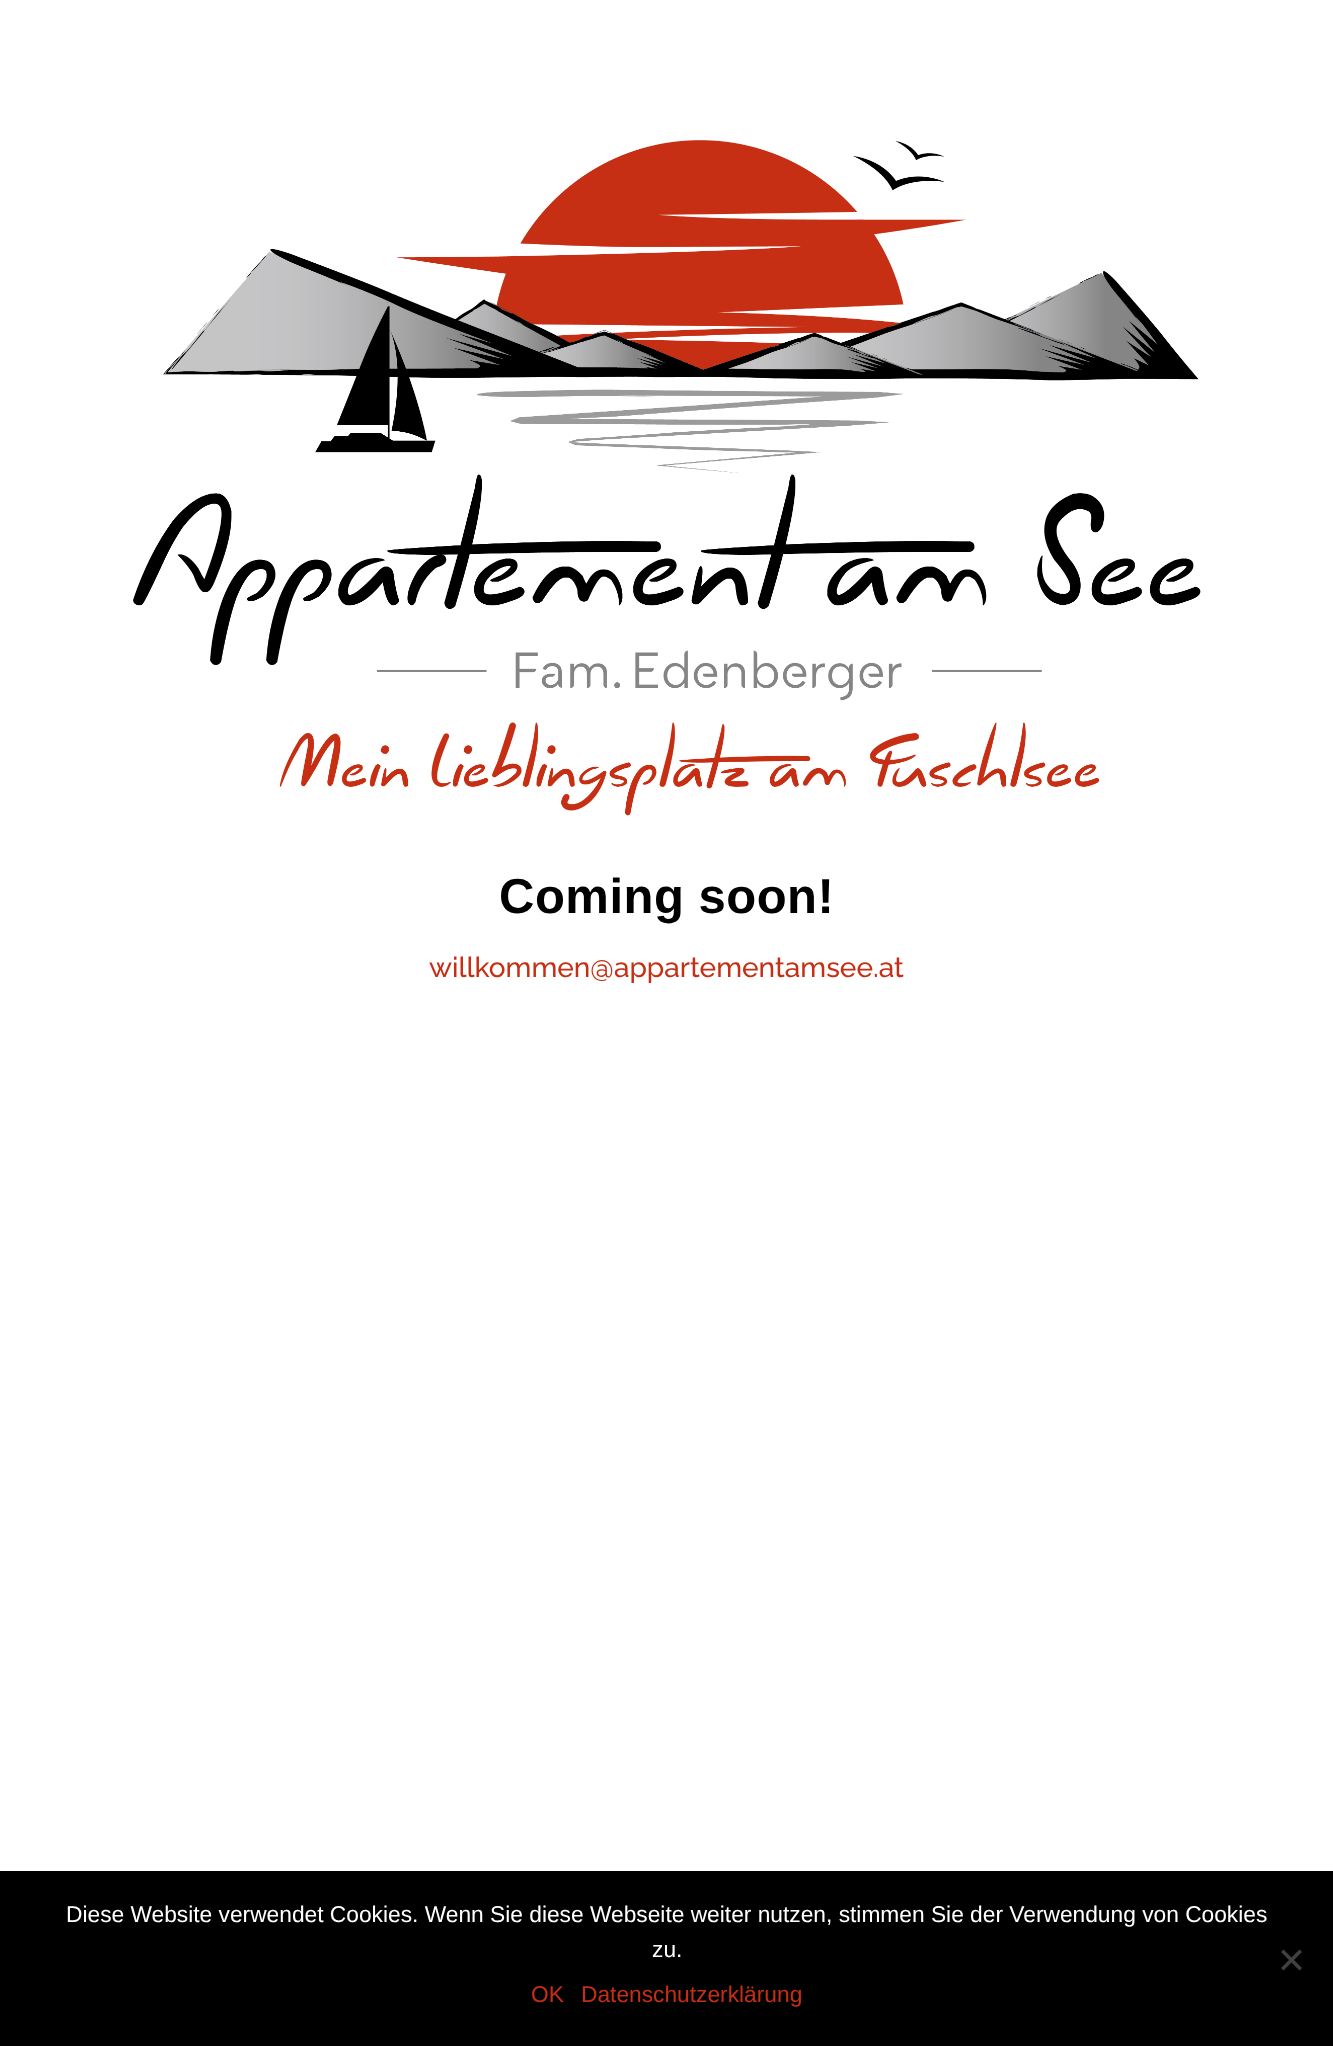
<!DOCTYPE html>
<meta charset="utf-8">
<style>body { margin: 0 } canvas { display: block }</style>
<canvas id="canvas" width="1333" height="2046"></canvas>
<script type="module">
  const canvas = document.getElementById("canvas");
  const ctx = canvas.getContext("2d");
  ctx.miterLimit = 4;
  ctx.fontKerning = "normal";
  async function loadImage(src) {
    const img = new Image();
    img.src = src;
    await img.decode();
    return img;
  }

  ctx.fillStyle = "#ffffff";
  ctx.fillRect(0, 0, 1333, 2046);
  ctx.drawImage(await loadImage("img1.png"), 133, 140, 1068, 676);
  ctx.letterSpacing = "0.5px";
  ctx.font = "bold 49px Liberation Sans";
  ctx.fillStyle = "#000000";
  ctx.fillText("Coming soon!", 499, 913);
  ctx.letterSpacing = "0px";
  ctx.font = "500 28px Raleway";
  ctx.fillStyle = "#c62f14";
  ctx.fillText("willkommen@appartementamsee.at", 429, 977);
  ctx.fillStyle = "#000000";
  ctx.fillRect(0, 1871, 1333, 175);
  ctx.font = "22.75px Liberation Sans";
  ctx.fillStyle = "#ffffff";
  ctx.fillText("Diese Website verwendet Cookies. Wenn Sie diese Webseite weiter nutzen, stimmen Sie der Verwendung von Cookies", 66, 1922);
  ctx.fillText("zu.", 652, 1957);
  ctx.fillStyle = "#404040";
  ctx.beginPath();
  ctx.moveTo(1299.5, 1949.5);
  ctx.lineTo(1302, 1952);
  ctx.lineTo(1283.5, 1970.5);
  ctx.lineTo(1281, 1968);
  ctx.closePath();
  ctx.fill();
  ctx.beginPath();
  ctx.moveTo(1281, 1952);
  ctx.lineTo(1283.5, 1949.5);
  ctx.lineTo(1302, 1968);
  ctx.lineTo(1299.5, 1970.5);
  ctx.closePath();
  ctx.fill();
  ctx.fillStyle = "#c62f14";
  ctx.fillText("OK", 531, 2002);
  ctx.fillText("Datenschutzerklärung", 581, 2002);
</script>
